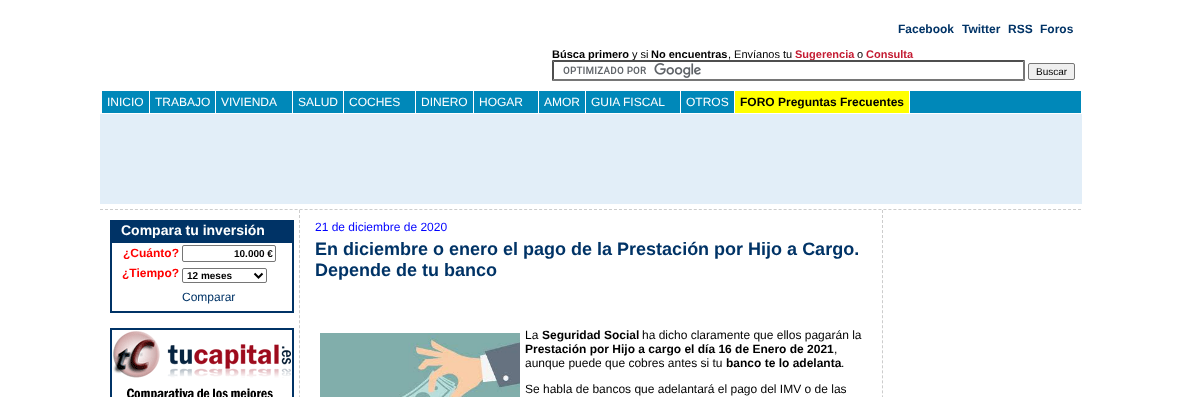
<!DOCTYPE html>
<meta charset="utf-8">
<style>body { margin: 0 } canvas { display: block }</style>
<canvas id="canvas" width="1182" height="397"></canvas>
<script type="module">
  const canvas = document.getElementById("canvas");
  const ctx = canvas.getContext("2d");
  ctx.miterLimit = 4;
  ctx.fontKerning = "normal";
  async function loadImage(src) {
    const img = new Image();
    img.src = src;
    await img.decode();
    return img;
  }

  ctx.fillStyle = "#ffffff";
  ctx.fillRect(0, 0, 1182, 397);
  ctx.font = "bold 12px Liberation Sans";
  ctx.fillStyle = "#003366";
  ctx.fillText("Facebook", 898, 33);
  ctx.fillText("Twitter", 962, 33);
  ctx.fillText("RSS", 1008, 33);
  ctx.fillText("Foros", 1040, 33);
  ctx.font = "bold 11px Liberation Sans";
  ctx.fillStyle = "#000000";
  ctx.fillText("Búsca primero", 552, 58);
  ctx.font = "11px Liberation Sans";
  ctx.fillText("y si", 632, 58);
  ctx.font = "bold 11px Liberation Sans";
  ctx.fillText("No encuentras", 651, 58);
  ctx.font = "11px Liberation Sans";
  ctx.fillText(", Envíanos tu", 728, 58);
  ctx.font = "bold 11px Liberation Sans";
  ctx.fillStyle = "#c41b32";
  ctx.fillText("Sugerencia", 795, 58);
  ctx.font = "11px Liberation Sans";
  ctx.fillStyle = "#000000";
  ctx.fillText("o", 857, 58);
  ctx.font = "bold 11px Liberation Sans";
  ctx.fillStyle = "#c41b32";
  ctx.fillText("Consulta", 866, 58);
  ctx.fillStyle = "#ffffff";
  ctx.fillRect(588, 60, 226, 1);
  ctx.drawImage(await loadImage("img1.png"), 563, 63, 138, 15);
  ctx.fillStyle = "#4f4f4f";
  ctx.beginPath();
  ctx.moveTo(552, 60);
  ctx.lineTo(1025, 60);
  ctx.lineTo(1023, 62);
  ctx.lineTo(554, 62);
  ctx.closePath();
  ctx.fill();
  ctx.fillStyle = "#767676";
  ctx.beginPath();
  ctx.moveTo(1025, 60);
  ctx.lineTo(1025, 81);
  ctx.lineTo(1023, 79);
  ctx.lineTo(1023, 62);
  ctx.closePath();
  ctx.fill();
  ctx.beginPath();
  ctx.moveTo(1025, 81);
  ctx.lineTo(552, 81);
  ctx.lineTo(554, 79);
  ctx.lineTo(1023, 79);
  ctx.closePath();
  ctx.fill();
  ctx.fillStyle = "#4f4f4f";
  ctx.beginPath();
  ctx.moveTo(552, 81);
  ctx.lineTo(552, 60);
  ctx.lineTo(554, 62);
  ctx.lineTo(554, 79);
  ctx.closePath();
  ctx.fill();
  ctx.fillStyle = "#efefef";
  ctx.beginPath();
  ctx.roundRect(1028.5, 63.5, 46, 16, 1.5);
  ctx.fill();
  ctx.strokeStyle = "#767676";
  ctx.stroke();
  ctx.font = "10px Liberation Sans";
  ctx.fillStyle = "#000000";
  ctx.fillText("Buscar", 1036, 75);
  ctx.fillStyle = "#0088b9";
  ctx.fillRect(910, 91, 171, 22);
  ctx.fillRect(102, 91, 47, 22);
  ctx.font = "12px Liberation Sans";
  ctx.fillStyle = "#ffffff";
  ctx.fillText("INICIO", 107, 106);
  ctx.fillStyle = "#0088b9";
  ctx.fillRect(150, 91, 65, 22);
  ctx.fillStyle = "#ffffff";
  ctx.fillText("TRABAJO", 155, 106);
  ctx.fillStyle = "#0088b9";
  ctx.fillRect(216, 91, 76, 22);
  ctx.fillStyle = "#ffffff";
  ctx.fillText("VIVIENDA", 221, 106);
  ctx.fillStyle = "#0088b9";
  ctx.fillRect(293, 91, 50, 22);
  ctx.fillStyle = "#ffffff";
  ctx.fillText("SALUD", 298, 106);
  ctx.fillStyle = "#0088b9";
  ctx.fillRect(344, 91, 71, 22);
  ctx.fillStyle = "#ffffff";
  ctx.fillText("COCHES", 349, 106);
  ctx.fillStyle = "#0088b9";
  ctx.fillRect(416, 91, 57, 22);
  ctx.fillStyle = "#ffffff";
  ctx.fillText("DINERO", 421, 106);
  ctx.fillStyle = "#0088b9";
  ctx.fillRect(474, 91, 64, 22);
  ctx.fillStyle = "#ffffff";
  ctx.fillText("HOGAR", 479, 106);
  ctx.fillStyle = "#0088b9";
  ctx.fillRect(539, 91, 46, 22);
  ctx.fillStyle = "#ffffff";
  ctx.fillText("AMOR", 544, 106);
  ctx.fillStyle = "#0088b9";
  ctx.fillRect(586, 91, 94, 22);
  ctx.fillStyle = "#ffffff";
  ctx.fillText("GUIA FISCAL", 591, 106);
  ctx.fillStyle = "#0088b9";
  ctx.fillRect(681, 91, 53, 22);
  ctx.fillStyle = "#ffffff";
  ctx.fillText("OTROS", 686, 106);
  ctx.fillStyle = "#ffff00";
  ctx.fillRect(735, 91, 174, 22);
  ctx.font = "bold 12px Liberation Sans";
  ctx.fillStyle = "#000000";
  ctx.fillText("FORO Preguntas Frecuentes", 740, 106);
  ctx.fillStyle = "#e2eef8";
  ctx.fillRect(100, 114, 982, 90);
  ctx.beginPath();
  ctx.moveTo(100, 209.5);
  ctx.lineTo(1082, 209.5);
  ctx.strokeStyle = "#cccccc";
  ctx.setLineDash([3, 1.99]);
  ctx.stroke();
  ctx.beginPath();
  ctx.moveTo(299.5, 210);
  ctx.lineTo(299.5, 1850);
  ctx.setLineDash([3, 2.01]);
  ctx.stroke();
  ctx.fillStyle = "#003366";
  ctx.fillRect(110, 220, 184, 93);
  ctx.font = "bold 14px Liberation Sans";
  ctx.fillStyle = "#ffffff";
  ctx.fillText("Compara tu inversión", 121, 235);
  ctx.fillRect(112, 243, 180, 68);
  ctx.font = "bold 12px Liberation Sans";
  ctx.fillStyle = "#ff0000";
  ctx.fillText("¿Cuánto?", 123, 257);
  ctx.beginPath();
  ctx.roundRect(182.5, 245.5, 93, 16, 1.5);
  ctx.strokeStyle = "#767676";
  ctx.setLineDash([]);
  ctx.stroke();
  ctx.font = "bold 10px Liberation Sans";
  ctx.fillStyle = "#000000";
  ctx.fillText("10.000 €", 234, 257);
  ctx.font = "bold 12px Liberation Sans";
  ctx.fillStyle = "#ff0000";
  ctx.fillText("¿Tiempo?", 122, 277);
  ctx.beginPath();
  ctx.roundRect(182.5, 268.5, 84, 14, 1.5);
  ctx.stroke();
  ctx.beginPath();
  ctx.moveTo(254.5, 273.5);
  ctx.lineTo(258.5, 277.5);
  ctx.lineTo(262.5, 273.5);
  ctx.strokeStyle = "#000000";
  ctx.lineWidth = 2;
  ctx.stroke();
  ctx.font = "bold 10px Liberation Sans";
  ctx.fillStyle = "#000000";
  ctx.fillText("12 meses", 187, 279);
  ctx.font = "12px Liberation Sans";
  ctx.fillStyle = "#003366";
  ctx.fillText("Comparar", 182, 301);
  ctx.strokeStyle = "#003366";
  ctx.strokeRect(111, 329, 182, 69);
  ctx.drawImage(await loadImage("img2.png"), 113, 331, 178, 66);
  ctx.fillStyle = "#0000ff";
  ctx.fillText("21 de diciembre de 2020", 315, 231);
  ctx.font = "bold 18px Liberation Sans";
  ctx.fillStyle = "#003366";
  ctx.fillText("En diciembre o enero el pago de la Prestación por Hijo a Cargo.", 315, 255);
  ctx.fillText("Depende de tu banco", 315, 276);
  ctx.drawImage(await loadImage("img3.png"), 320, 333, 200, 64);
  ctx.font = "12px Liberation Sans";
  ctx.fillStyle = "#000000";
  ctx.fillText("La", 525, 339);
  ctx.font = "bold 12px Liberation Sans";
  ctx.fillText("Seguridad Social", 542, 339);
  ctx.font = "12px Liberation Sans";
  ctx.fillText("ha dicho claramente que ellos pagarán la", 642, 339);
  ctx.font = "bold 12px Liberation Sans";
  ctx.fillText("Prestación por Hijo a cargo el día 16 de Enero de 2021", 525, 353);
  ctx.font = "12px Liberation Sans";
  ctx.fillText(",", 834, 353);
  ctx.fillText("aunque puede que cobres antes si tu", 525, 367);
  ctx.font = "bold 12px Liberation Sans";
  ctx.fillText("banco te lo adelanta", 726, 367);
  ctx.font = "12px Liberation Sans";
  ctx.fillText(".", 841, 367);
  ctx.fillText("Se habla de bancos que adelantará el pago del IMV o de las", 525, 393);
  ctx.beginPath();
  ctx.moveTo(882.5, 210);
  ctx.lineTo(882.5, 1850);
  ctx.strokeStyle = "#cccccc";
  ctx.lineWidth = 1;
  ctx.setLineDash([3, 2.01]);
  ctx.stroke();
</script>
